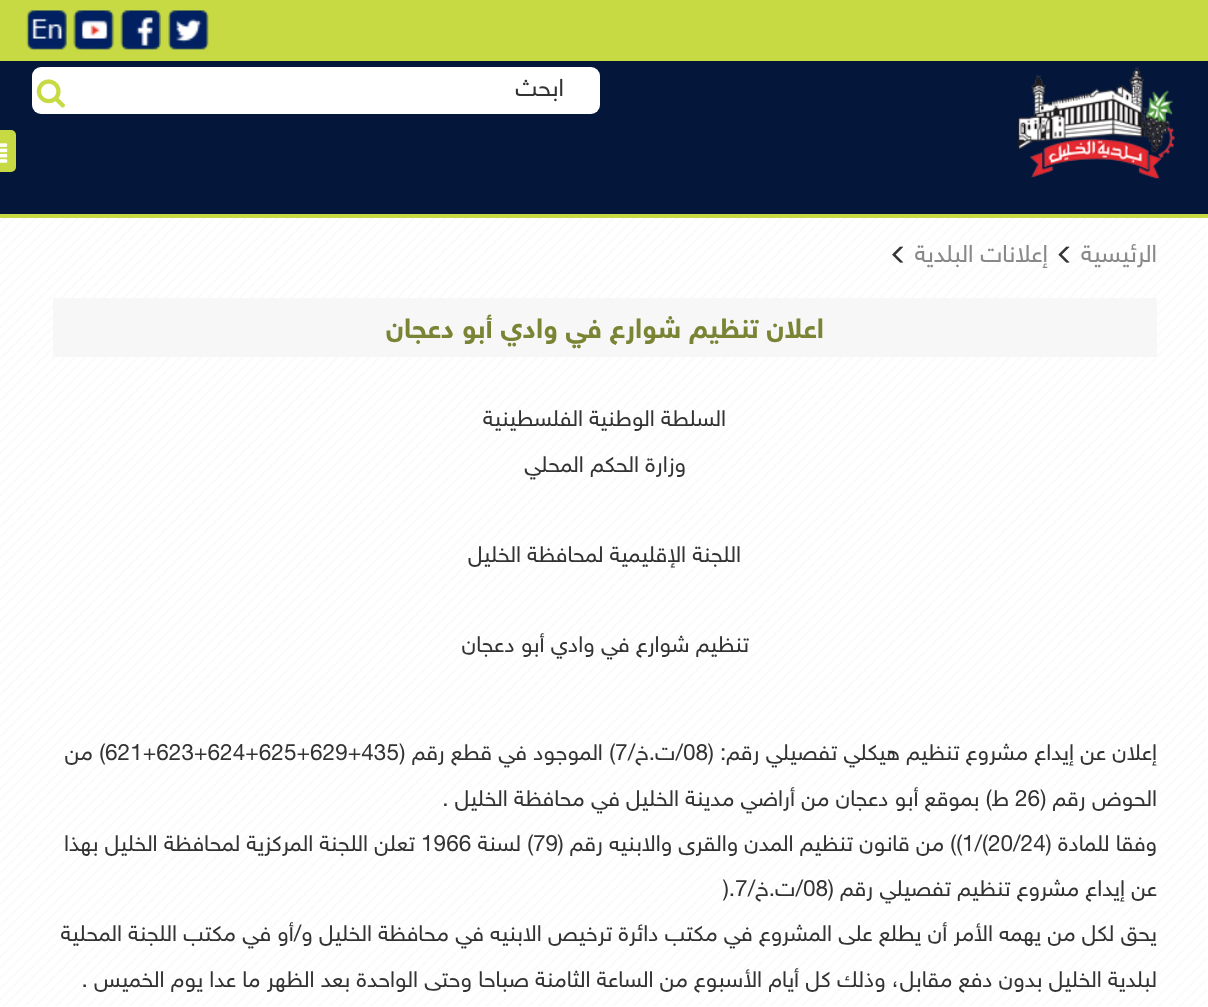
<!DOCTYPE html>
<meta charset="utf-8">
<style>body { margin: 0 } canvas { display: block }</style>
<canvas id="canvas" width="1208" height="1007"></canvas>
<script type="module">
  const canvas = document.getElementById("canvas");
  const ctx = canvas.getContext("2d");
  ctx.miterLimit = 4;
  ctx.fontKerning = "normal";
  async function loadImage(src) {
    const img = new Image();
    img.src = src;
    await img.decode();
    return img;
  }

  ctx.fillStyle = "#ffffff";
  ctx.fillRect(0, 0, 1208, 1007);
  ctx.drawImage(await loadImage("img1.png"), 0, 218, 1207, 788);
  ctx.fillStyle = "#04163a";
  ctx.fillRect(0, 61, 1208, 153);
  ctx.fillStyle = "#c7da43";
  ctx.fillRect(0, 214, 1208, 4);
  ctx.fillRect(0, 0, 1208, 61);
  ctx.drawImage(await loadImage("img2.png"), 168, 10, 41, 40);
  ctx.drawImage(await loadImage("img3.png"), 120, 10, 41, 40);
  ctx.drawImage(await loadImage("img4.png"), 73, 10, 41, 40);
  ctx.drawImage(await loadImage("img5.png"), 26, 10, 41, 40);
  ctx.drawImage(await loadImage("img6.png"), 1017, 67, 158, 112);
  ctx.fillStyle = "#ffffff";
  ctx.beginPath();
  ctx.roundRect(32, 67, 568, 47, 9);
  ctx.fill();
  ctx.direction = "rtl";
  ctx.font = "24.5px 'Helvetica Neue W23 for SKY'";
  ctx.fillStyle = "#333333";
  ctx.fillText("ابحث", 564, 96);
  ctx.drawImage(await loadImage("img7.png"), 36, 79, 29, 29);
  ctx.fillStyle = "#c7da43";
  ctx.beginPath();
  ctx.roundRect(-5, 130, 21, 42, 5);
  ctx.fill();
  ctx.drawImage(await loadImage("img8.png"), 0, 143, 8, 20);
  ctx.fillStyle = "#898989";
  ctx.fillText("الرئيسية", 1157, 262);
  ctx.drawImage(await loadImage("img9.png"), 1058, 246, 12, 17);
  ctx.fillText("إعلانات البلدية", 1048, 262);
  ctx.drawImage(await loadImage("img10.png"), 892, 246, 12, 17);
  ctx.fillStyle = "#f7f7f7";
  ctx.fillRect(53, 298, 1104, 59);
  ctx.font = "bold 28px 'Helvetica Neue W23 for SKY'";
  ctx.fillStyle = "#7a8434";
  ctx.fillText("اعلان تنظيم شوارع في وادي أبو دعجان", 824, 338);
  ctx.font = "22.6px 'Helvetica Neue W23 for SKY'";
  ctx.fillStyle = "#333333";
  ctx.fillText("السلطة الوطنية الفلسطينية", 726, 426);
  ctx.fillText("وزارة الحكم المحلي", 686, 472);
  ctx.fillText("اللجنة الإقليمية لمحافظة الخليل", 741, 562);
  ctx.fillText("تنظيم شوارع في وادي أبو دعجان", 749, 652);
  ctx.fillText("إعلان عن إيداع مشروع تنظيم هيكلي تفصيلي رقم: (", 1157, 760);
  ctx.fillText("/ت.خ/", 683, 760);
  ctx.direction = "ltr";
  ctx.fillText("08", 683, 760);
  ctx.direction = "rtl";
  ctx.fillText(") الموجود في قطع رقم (", 615, 760);
  ctx.direction = "ltr";
  ctx.fillText("7", 615, 760);
  ctx.fillText("621+623+624+625+629+435", 105, 760);
  ctx.direction = "rtl";
  ctx.fillText(") من", 105, 760);
  ctx.fillText("الحوض رقم (", 1157, 806);
  ctx.direction = "ltr";
  ctx.fillText("26", 1015, 806);
  ctx.direction = "rtl";
  ctx.fillText("ط) بموقع أبو دعجان من أراضي مدينة الخليل في محافظة الخليل .", 1009, 806);
  ctx.fillText("وفقا للمادة (", 1157, 851);
  ctx.direction = "ltr";
  ctx.fillText("1/(20/24", 962, 851);
  ctx.direction = "rtl";
  ctx.fillText(")) من قانون تنظيم المدن والقرى والابنيه رقم (", 962, 851);
  ctx.direction = "ltr";
  ctx.fillText("79", 533, 851);
  ctx.direction = "rtl";
  ctx.fillText(") لسنة", 533, 851);
  ctx.direction = "ltr";
  ctx.fillText("1966", 421, 851);
  ctx.direction = "rtl";
  ctx.fillText("تعلن اللجنة المركزية لمحافظة الخليل بهذا", 415, 851);
  ctx.fillText("عن إيداع مشروع تنظيم تفصيلي رقم (", 1157, 896);
  ctx.direction = "ltr";
  ctx.fillText(").7", 723, 896);
  ctx.direction = "rtl";
  ctx.fillText("/ت.خ/", 803, 896);
  ctx.direction = "ltr";
  ctx.fillText("08", 803, 896);
  ctx.direction = "rtl";
  ctx.fillText("يحق لكل من يهمه الأمر أن يطلع على المشروع في مكتب دائرة ترخيص الابنيه في محافظة الخليل و/أو في مكتب اللجنة المحلية", 1157, 941);
  ctx.fillText("لبلدية الخليل بدون دفع مقابل، وذلك كل أيام الأسبوع من الساعة الثامنة صباحا وحتى الواحدة بعد الظهر ما عدا يوم الخميس .", 1157, 987);
</script>
